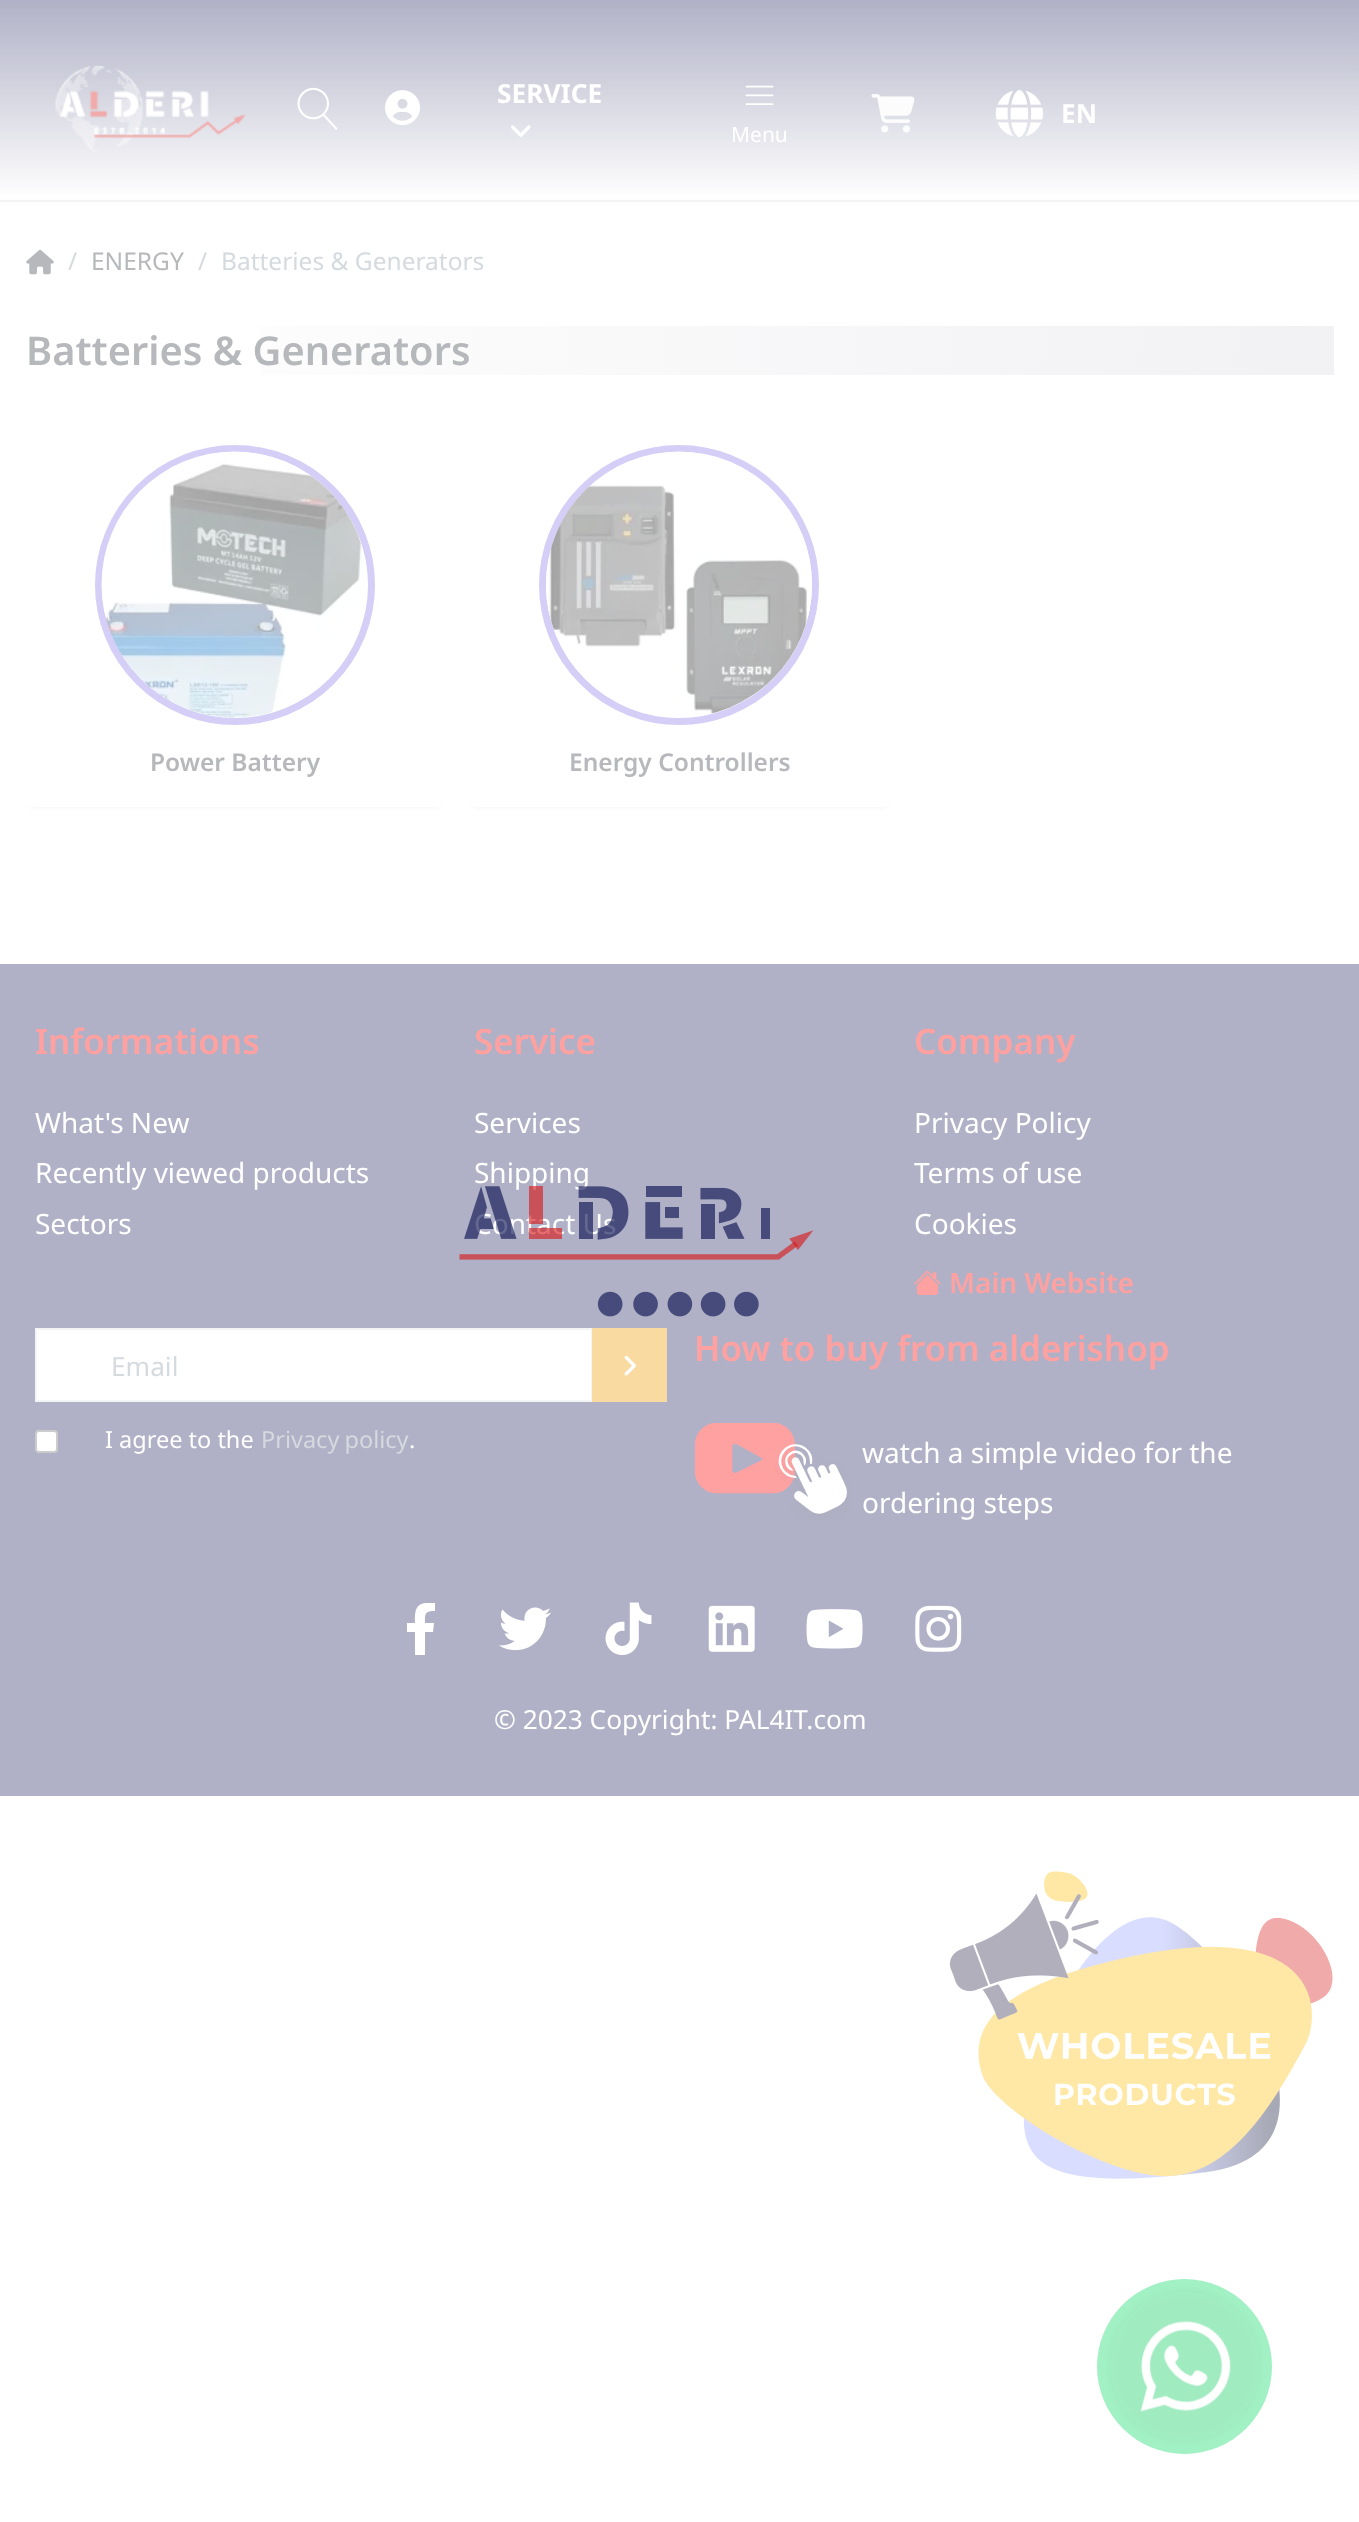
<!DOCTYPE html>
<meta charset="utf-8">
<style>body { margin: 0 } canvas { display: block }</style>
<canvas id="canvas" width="1359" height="2522"></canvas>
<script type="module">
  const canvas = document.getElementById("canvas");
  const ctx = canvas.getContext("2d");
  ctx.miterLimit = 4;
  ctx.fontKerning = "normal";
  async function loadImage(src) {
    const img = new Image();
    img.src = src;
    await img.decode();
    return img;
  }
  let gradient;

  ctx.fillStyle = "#ffffff";
  ctx.fillRect(0, 0, 1359, 2522);
  gradient = ctx.createLinearGradient(680, 0, 680, 200);
  gradient.addColorStop(0, "#b0b1c6");
  gradient.addColorStop(1, "#ffffff");
  ctx.fillStyle = gradient;
  ctx.fillRect(0, 0, 1359, 194);
  ctx.fillStyle = "#f4f4f4";
  ctx.fillRect(0, 200, 1359, 2);
  ctx.drawImage(await loadImage("img1.png"), 55, 65, 191, 88);
  ctx.drawImage(await loadImage("img2.png"), 297, 87, 41, 43);
  ctx.drawImage(await loadImage("img3.png"), 385, 90, 35, 36);
  ctx.font = "bold 26.25px Noto Sans";
  ctx.fillStyle = "#ffffff";
  ctx.fillText("SERVICE", 497, 103);
  ctx.drawImage(await loadImage("img4.png"), 511, 125, 20, 12);
  ctx.drawImage(await loadImage("img5.png"), 871, 94, 44, 39);
  ctx.drawImage(await loadImage("img6.png"), 995, 89, 48, 49);
  ctx.fillText("EN", 1061, 123);
  ctx.drawImage(await loadImage("img7.png"), 745, 85, 29, 20);
  ctx.font = "21px Noto Sans";
  ctx.fillText("Menu", 731, 142);
  ctx.drawImage(await loadImage("img8.png"), 26, 249, 28, 26);
  ctx.font = "24.5px Noto Sans";
  ctx.fillStyle = "#d5dadf";
  ctx.fillText("/", 68, 270);
  ctx.fillStyle = "#b6b8bb";
  ctx.fillText("ENERGY", 91, 270);
  ctx.fillStyle = "#d5dadf";
  ctx.fillText("/", 198, 270);
  ctx.fillText("Batteries & Generators", 221, 270);
  gradient = ctx.createLinearGradient(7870, 601, 26, 327);
  gradient.addColorStop(0, "#acadbb");
  gradient.addColorStop(1, "#ffffff");
  ctx.fillStyle = gradient;
  ctx.fillRect(261, 326, 1073, 49);
  ctx.font = "600 39.75px Noto Sans";
  ctx.fillStyle = "#b6b8bb";
  ctx.fillText("Batteries & Generators", 26, 365);
  ctx.fillStyle = "rgba(161, 161, 161, 0.15)";
  ctx.filter = "blur(2.5px)";
  ctx.beginPath();
  ctx.roundRect(30, 424, 409, 383, 2);
  ctx.fill();
  ctx.filter = "none";
  ctx.fillStyle = "#ffffff";
  ctx.beginPath();
  ctx.roundRect(26, 417, 417, 390, 5);
  ctx.fill();
  ctx.beginPath();
  ctx.arc(235, 585, 136.5, 0, Math.PI * 2);
  ctx.strokeStyle = "#d5cef7";
  ctx.lineWidth = 7;
  ctx.stroke();
  ctx.drawImage(await loadImage("img9.png"), 101, 451, 267, 267);
  ctx.font = "600 24.5px Noto Sans";
  ctx.fillStyle = "#b6b8bb";
  ctx.fillText("Power Battery", 150, 771);
  ctx.fillStyle = "rgba(161, 161, 161, 0.15)";
  ctx.filter = "blur(2.5px)";
  ctx.beginPath();
  ctx.roundRect(474, 424, 412, 383, 2);
  ctx.fill();
  ctx.filter = "none";
  ctx.fillStyle = "#ffffff";
  ctx.beginPath();
  ctx.roundRect(471, 417, 418, 390, 5);
  ctx.fill();
  ctx.beginPath();
  ctx.arc(679, 585, 136.5, 0, Math.PI * 2);
  ctx.stroke();
  ctx.drawImage(await loadImage("img10.png"), 546, 451, 266, 267);
  ctx.fillStyle = "#b6b8bb";
  ctx.fillText("Energy Controllers", 569, 771);
  ctx.fillStyle = "#b0b1c6";
  ctx.fillRect(0, 964, 1359, 832);
  ctx.font = "600 35px Noto Sans";
  ctx.fillStyle = "#ffa1a1";
  ctx.fillText("Informations", 35, 1054);
  ctx.font = "28px Noto Sans";
  ctx.fillStyle = "#ffffff";
  ctx.fillText("What's New", 35, 1133);
  ctx.fillText("Recently viewed products", 35, 1183);
  ctx.fillText("Sectors", 35, 1234);
  ctx.font = "600 35px Noto Sans";
  ctx.fillStyle = "#ffa1a1";
  ctx.fillText("Service", 474, 1054);
  ctx.font = "28px Noto Sans";
  ctx.fillStyle = "#ffffff";
  ctx.fillText("Services", 474, 1133);
  ctx.fillText("Shipping", 474, 1183);
  ctx.fillText("Contact Us", 474, 1234);
  ctx.font = "600 35px Noto Sans";
  ctx.fillStyle = "#ffa1a1";
  ctx.fillText("Company", 914, 1054);
  ctx.font = "28px Noto Sans";
  ctx.fillStyle = "#ffffff";
  ctx.fillText("Privacy Policy", 914, 1133);
  ctx.fillText("Terms of use", 914, 1183);
  ctx.fillText("Cookies", 914, 1234);
  ctx.drawImage(await loadImage("img11.png"), 914, 1270, 27, 25);
  ctx.font = "600 28px Noto Sans";
  ctx.fillStyle = "#ffa1a1";
  ctx.fillText("Main Website", 949, 1293);
  ctx.fillStyle = "#ffffff";
  ctx.beginPath();
  ctx.rect(36, 1329, 556, 72);
  ctx.fill();
  ctx.strokeStyle = "#f3f4f6";
  ctx.lineWidth = 2;
  ctx.stroke();
  ctx.font = "26.25px Noto Sans";
  ctx.fillStyle = "#d5dadf";
  ctx.fillText("Email", 111, 1376);
  ctx.fillStyle = "#f9daa1";
  ctx.fillRect(592, 1328, 75, 74);
  ctx.drawImage(await loadImage("img12.png"), 624, 1355, 12, 21);
  ctx.fillStyle = "#ffffff";
  ctx.beginPath();
  ctx.roundRect(36, 1431, 21, 21, 3);
  ctx.fill();
  ctx.strokeStyle = "#cccccc";
  ctx.stroke();
  ctx.font = "23.5px Noto Sans";
  ctx.fillText("I agree to the", 105, 1448);
  ctx.wordSpacing = "-1px";
  ctx.fillStyle = "#d5dadf";
  ctx.fillText("Privacy policy", 261, 1448);
  ctx.wordSpacing = "0px";
  ctx.fillStyle = "#ffffff";
  ctx.fillText(".", 409, 1448);
  ctx.font = "600 35px Noto Sans";
  ctx.fillStyle = "#ffa1a1";
  ctx.fillText("How to buy from alderishop", 694, 1361);
  ctx.drawImage(await loadImage("img13.png"), 695, 1423, 155, 98);
  ctx.font = "28px Noto Sans";
  ctx.fillStyle = "#ffffff";
  ctx.fillText("watch a simple video for the", 862, 1463);
  ctx.fillText("ordering steps", 862, 1513);
  ctx.beginPath();
  ctx.moveTo(433, 1632);
  ctx.lineTo(434, 1623);
  ctx.lineTo(425, 1623);
  ctx.bezierCurveTo(425, 1613, 425, 1611, 435, 1611);
  ctx.lineTo(435, 1603);
  ctx.lineTo(426, 1603);
  ctx.bezierCurveTo(414, 1604, 415, 1614, 415, 1623);
  ctx.lineTo(407, 1623);
  ctx.lineTo(407, 1632);
  ctx.lineTo(415, 1632);
  ctx.lineTo(415, 1655);
  ctx.lineTo(425, 1655);
  ctx.lineTo(425, 1632);
  ctx.closePath();
  ctx.fill();
  ctx.drawImage(await loadImage("img14.png"), 499, 1607, 53, 44);
  ctx.drawImage(await loadImage("img15.png"), 605, 1602, 47, 53);
  ctx.drawImage(await loadImage("img16.png"), 708, 1605, 47, 47);
  ctx.drawImage(await loadImage("img17.png"), 806, 1609, 57, 40);
  ctx.drawImage(await loadImage("img18.png"), 915, 1605, 47, 47);
  ctx.font = "26.25px Noto Sans";
  ctx.fillText("© 2023 Copyright: PAL4IT.com", 494, 1729);
  ctx.fillStyle = "#a1f1c4";
  ctx.beginPath();
  ctx.arc(1184.5, 2366.5, 87.5, 0, Math.PI * 2);
  ctx.fill();
  ctx.drawImage(await loadImage("img19.png"), 1106, 2287, 157, 158);
  ctx.drawImage(await loadImage("img20.png"), 459, 1186, 355, 131);
  ctx.drawImage(await loadImage("img21.png"), 949, 1871, 384, 308);
</script>
